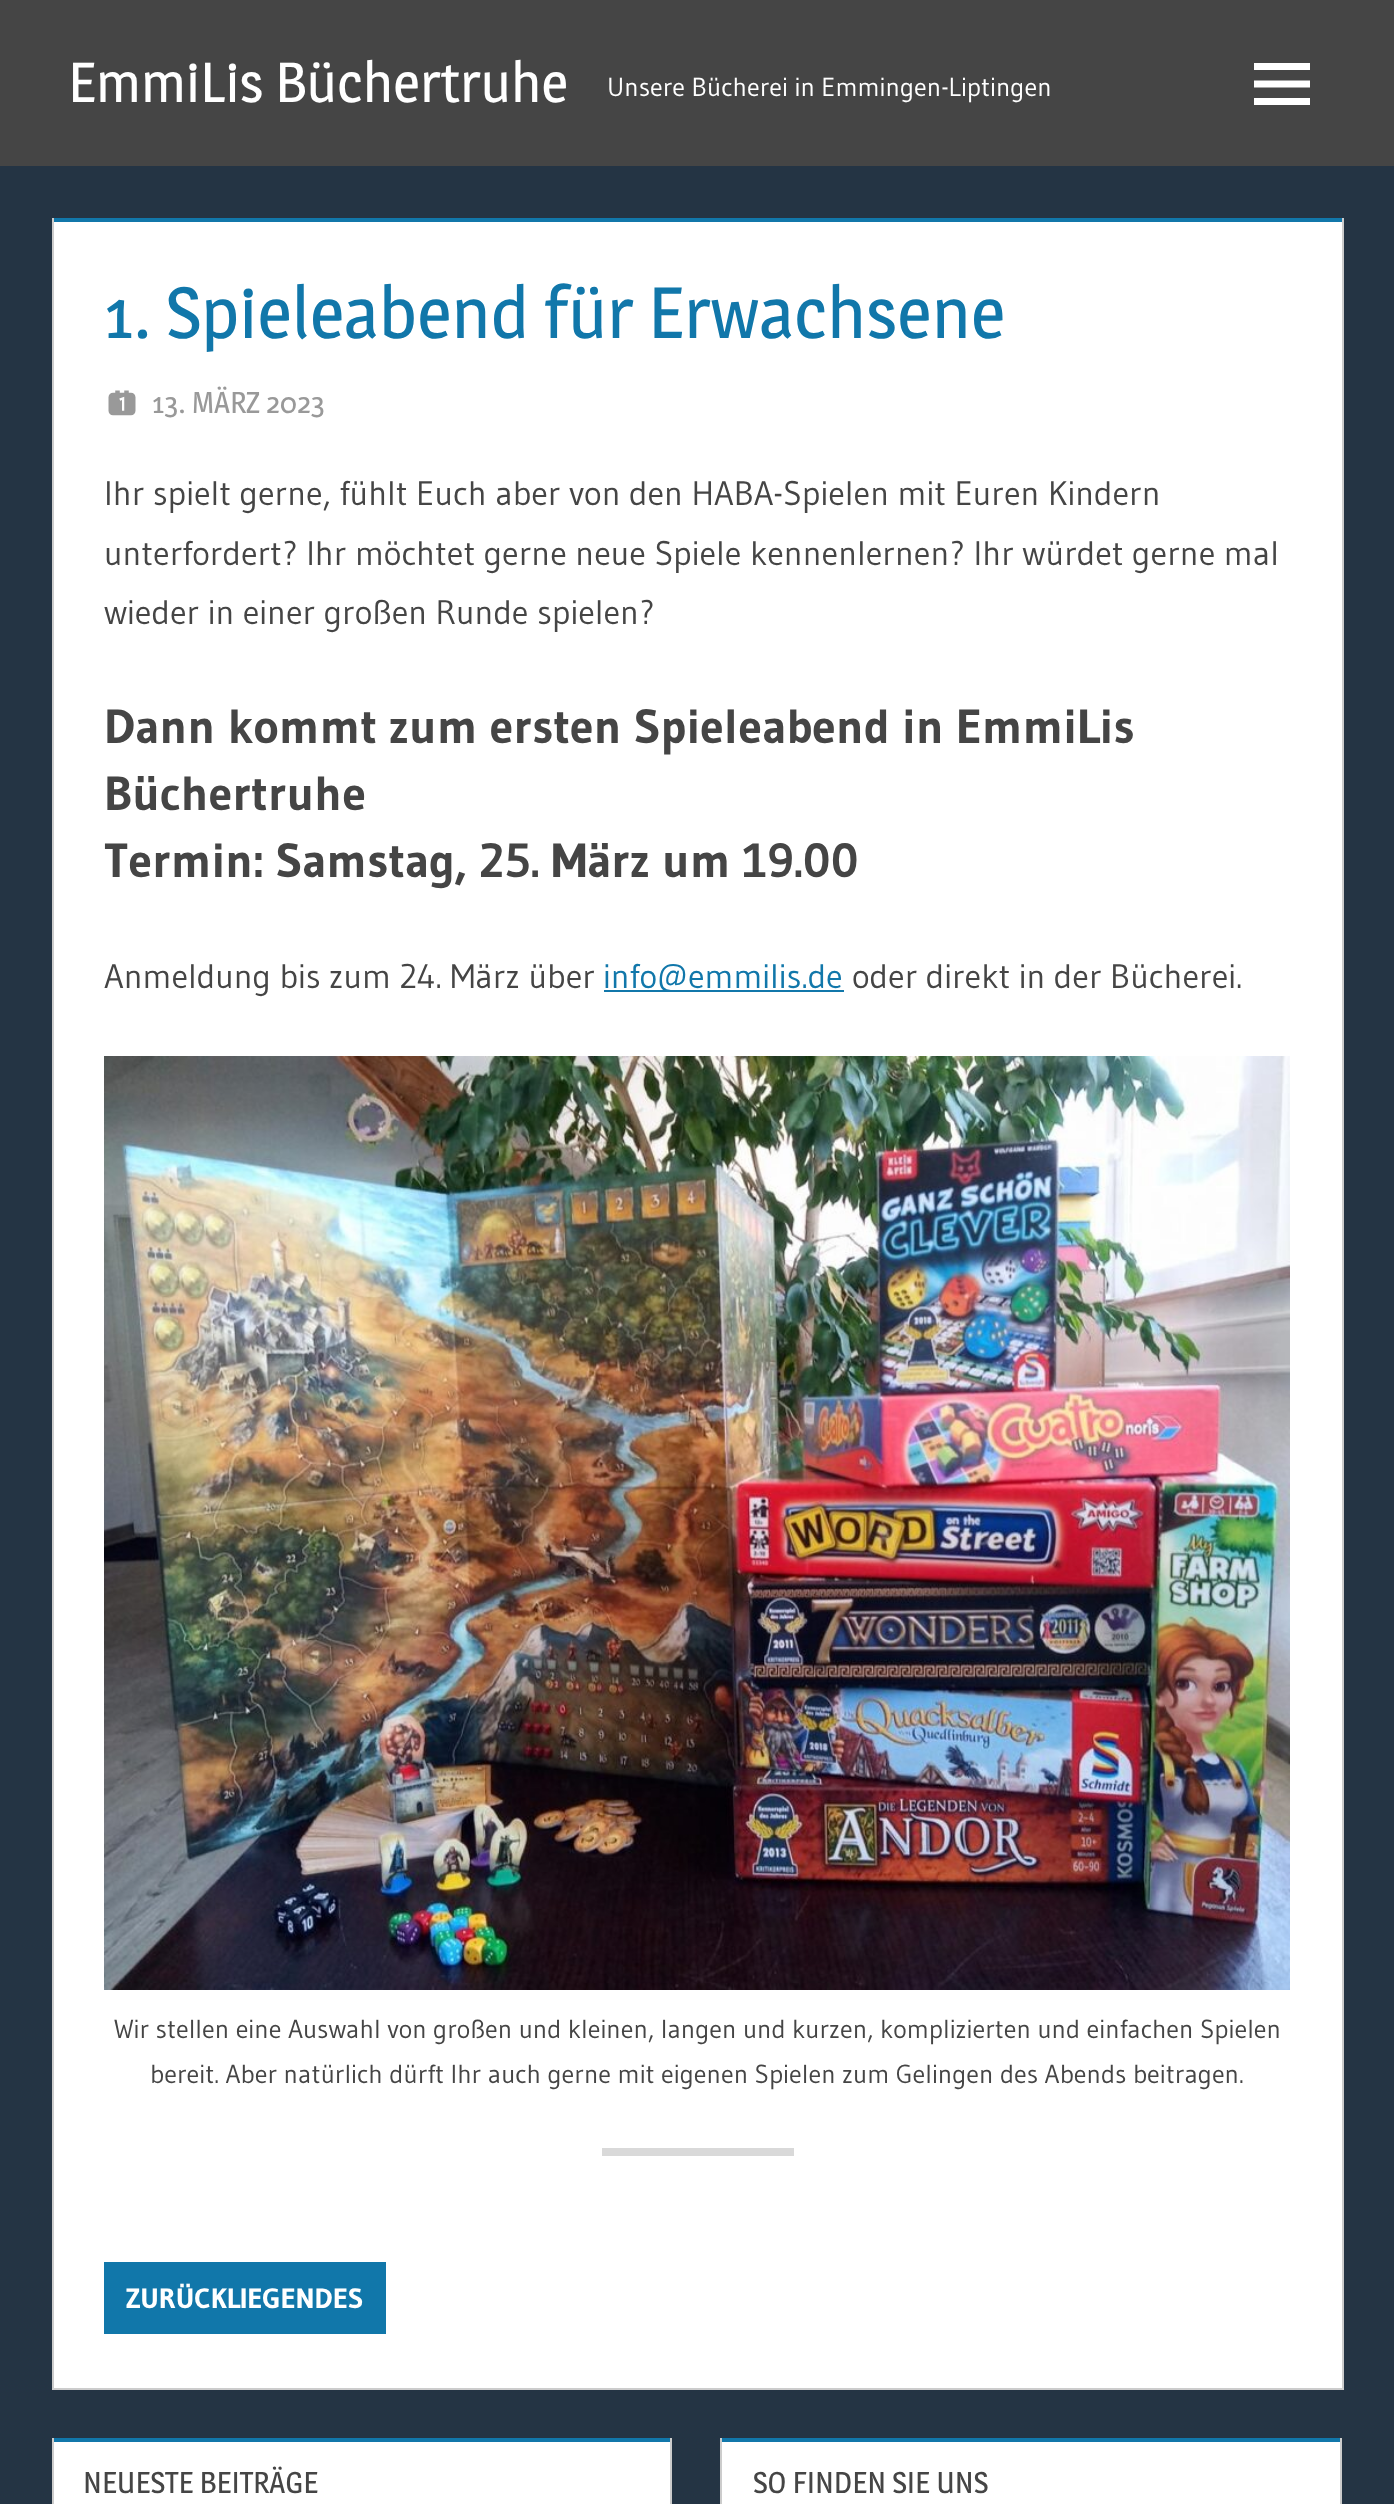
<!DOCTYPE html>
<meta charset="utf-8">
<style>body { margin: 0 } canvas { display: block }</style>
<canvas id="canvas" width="1394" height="2504"></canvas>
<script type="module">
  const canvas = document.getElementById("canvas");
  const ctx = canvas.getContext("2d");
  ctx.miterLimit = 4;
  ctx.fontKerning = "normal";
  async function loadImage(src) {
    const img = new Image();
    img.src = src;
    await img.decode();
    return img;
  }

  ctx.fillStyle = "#243444";
  ctx.fillRect(0, 0, 1394, 2504);
  ctx.fillStyle = "#454545";
  ctx.fillRect(0, 0, 1394, 166);
  ctx.font = "56px Magra";
  ctx.fillStyle = "#ffffff";
  ctx.fillText("EmmiLis Büchertruhe", 68, 102);
  ctx.font = "26px Gudea";
  ctx.fillText("Unsere Bücherei in Emmingen-Liptingen", 607, 96);
  ctx.drawImage(await loadImage("img1.png"), 1254, 63, 56, 42);
  ctx.fillRect(52, 218, 1292, 2172);
  ctx.fillStyle = "#1177aa";
  ctx.fillRect(54, 218, 1288, 4);
  ctx.fillStyle = "#cccccc";
  ctx.beginPath();
  ctx.moveTo(1344, 218);
  ctx.lineTo(1344, 2390);
  ctx.lineTo(1342, 2388);
  ctx.lineTo(1342, 218);
  ctx.closePath();
  ctx.fill();
  ctx.fillStyle = "rgba(0, 0, 0, 0.2)";
  ctx.beginPath();
  ctx.moveTo(1344, 2390);
  ctx.lineTo(52, 2390);
  ctx.lineTo(54, 2388);
  ctx.lineTo(1342, 2388);
  ctx.closePath();
  ctx.fill();
  ctx.beginPath();
  ctx.moveTo(52, 2390);
  ctx.lineTo(52, 218);
  ctx.lineTo(54, 218);
  ctx.lineTo(54, 2388);
  ctx.closePath();
  ctx.fill();
  ctx.font = "72px Magra";
  ctx.fillStyle = "#1177aa";
  ctx.fillText("1. Spieleabend für Erwachsene", 104, 338);
  ctx.drawImage(await loadImage("img2.png"), 108, 390, 28, 26);
  ctx.font = "30px Magra";
  ctx.fillStyle = "#999999";
  ctx.fillText("13. MÄRZ 2023", 152, 413);
  ctx.font = "34px Gudea";
  ctx.fillStyle = "#454545";
  ctx.fillText("Ihr spielt gerne, fühlt Euch aber von den HABA-Spielen mit Euren Kindern", 104, 505);
  ctx.fillText("unterfordert? Ihr möchtet gerne neue Spiele kennenlernen? Ihr würdet gerne mal", 104, 565);
  ctx.fillText("wieder in einer großen Runde spielen?", 104, 624);
  ctx.font = "bold 48px Gudea";
  ctx.fillText("Dann kommt zum ersten Spieleabend in EmmiLis", 104, 743);
  ctx.fillText("Büchertruhe", 104, 810);
  ctx.fillText("Termin: Samstag, 25. März um 19.00", 104, 877);
  ctx.font = "34px Gudea";
  ctx.fillText("Anmeldung bis zum 24. März über", 104, 988);
  ctx.fillStyle = "#1177aa";
  ctx.fillRect(604, 990, 240, 2);
  ctx.fillText("info@emmilis.de", 603, 988);
  ctx.fillStyle = "#454545";
  ctx.fillText("oder direkt in der Bücherei.", 852, 988);
  ctx.drawImage(await loadImage("img3.png"), 104, 1056, 1186, 934);
  ctx.font = "26px Gudea";
  ctx.fillText("Wir stellen eine Auswahl von großen und kleinen, langen und kurzen, komplizierten und einfachen Spielen", 114, 2038);
  ctx.fillText("bereit. Aber natürlich dürft Ihr auch gerne mit eigenen Spielen zum Gelingen des Abends beitragen.", 150, 2083);
  ctx.fillStyle = "#d9d9d9";
  ctx.fillRect(602, 2148, 192, 8);
  ctx.fillStyle = "#1177aa";
  ctx.fillRect(104, 2262, 282, 72);
  ctx.font = "bold 28px Gudea";
  ctx.fillStyle = "#ffffff";
  ctx.fillText("ZURÜCKLIEGENDES", 126, 2308);
  ctx.fillRect(54, 2442, 616, 62);
  ctx.fillStyle = "#1177aa";
  ctx.fillRect(54, 2438, 616, 4);
  ctx.fillStyle = "#cccccc";
  ctx.beginPath();
  ctx.moveTo(672, 2438);
  ctx.lineTo(672, 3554);
  ctx.lineTo(670, 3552);
  ctx.lineTo(670, 2438);
  ctx.closePath();
  ctx.fill();
  ctx.beginPath();
  ctx.moveTo(52, 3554);
  ctx.lineTo(52, 2438);
  ctx.lineTo(54, 2438);
  ctx.lineTo(54, 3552);
  ctx.closePath();
  ctx.fill();
  ctx.font = "30px Magra";
  ctx.fillStyle = "#454545";
  ctx.fillText("NEUESTE BEITRÄGE", 83, 2493);
  ctx.fillStyle = "#ffffff";
  ctx.fillRect(722, 2442, 618, 62);
  ctx.fillStyle = "#1177aa";
  ctx.fillRect(722, 2438, 618, 4);
  ctx.fillStyle = "#cccccc";
  ctx.beginPath();
  ctx.moveTo(1342, 2438);
  ctx.lineTo(1342, 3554);
  ctx.lineTo(1340, 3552);
  ctx.lineTo(1340, 2438);
  ctx.closePath();
  ctx.fill();
  ctx.beginPath();
  ctx.moveTo(720, 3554);
  ctx.lineTo(720, 2438);
  ctx.lineTo(722, 2438);
  ctx.lineTo(722, 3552);
  ctx.closePath();
  ctx.fill();
  ctx.fillStyle = "#454545";
  ctx.fillText("SO FINDEN SIE UNS", 753, 2493);
</script>
